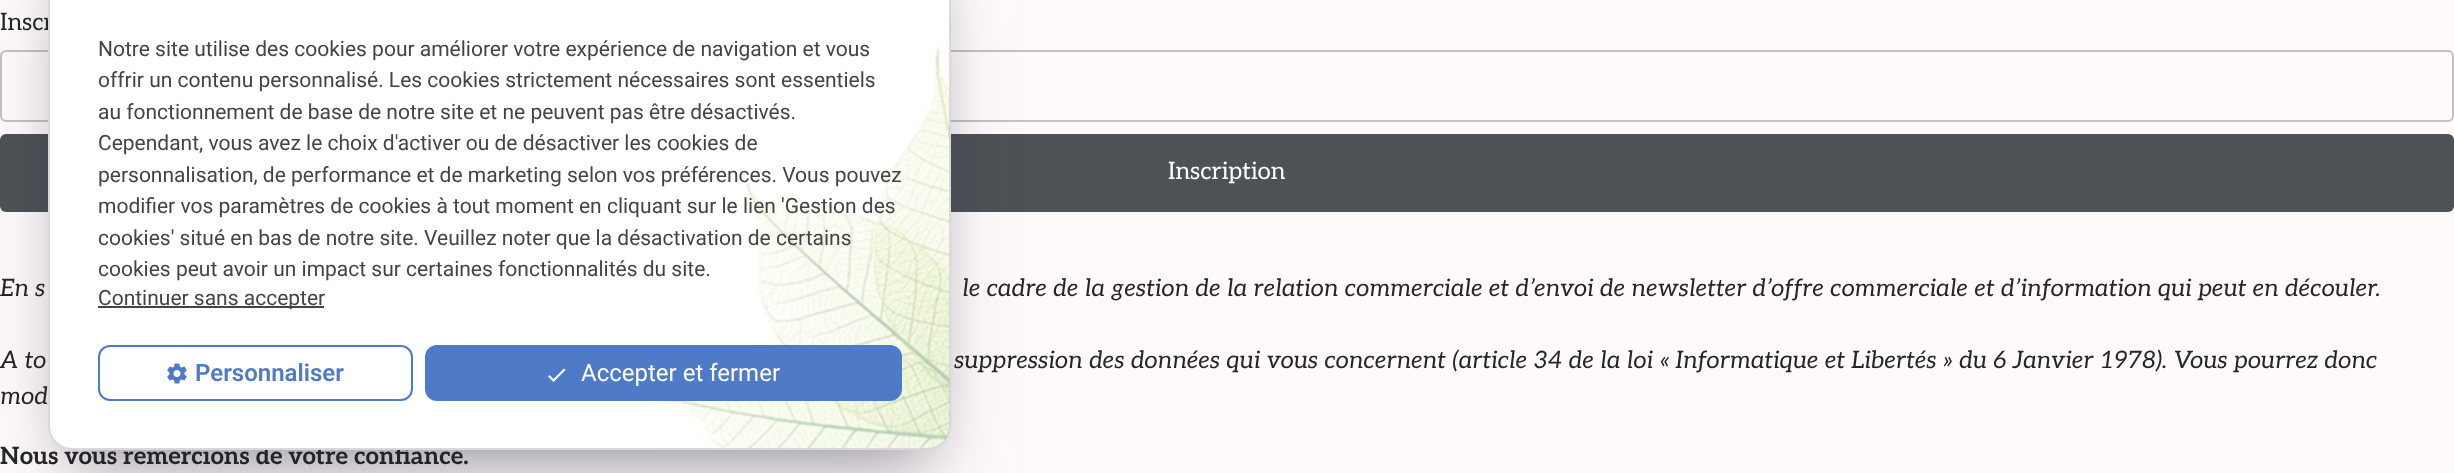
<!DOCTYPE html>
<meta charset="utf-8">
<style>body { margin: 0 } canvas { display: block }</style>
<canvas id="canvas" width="2454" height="473"></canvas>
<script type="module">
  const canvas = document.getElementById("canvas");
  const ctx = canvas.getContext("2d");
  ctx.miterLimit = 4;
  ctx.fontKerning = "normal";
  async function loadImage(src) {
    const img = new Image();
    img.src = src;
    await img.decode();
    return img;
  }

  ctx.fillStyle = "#fffafa";
  ctx.fillRect(0, 0, 2454, 473);
  ctx.font = "24px Aleo";
  ctx.fillStyle = "#262626";
  ctx.fillText("Inscr", 0, 30);
  ctx.beginPath();
  ctx.roundRect(1, 51, 2452, 70, 5);
  ctx.strokeStyle = "#c2c2c2";
  ctx.lineWidth = 2;
  ctx.stroke();
  ctx.fillStyle = "#4e5256";
  ctx.beginPath();
  ctx.roundRect(0, 134, 2454, 78, 6);
  ctx.fill();
  ctx.fillStyle = "#ffffff";
  ctx.fillText("Inscription", 1168, 179);
  ctx.font = "italic 24px Aleo";
  ctx.fillStyle = "#262626";
  ctx.fillText("En s", 0, 296);
  ctx.fillText("le cadre de la gestion de la relation commerciale et d’envoi de newsletter d’offre commerciale et d’information qui peut en découler.", 962, 296);
  ctx.fillText("A to", 0, 368);
  ctx.fillText("suppression des données qui vous concernent (article 34 de la loi « Informatique et Libertés » du 6 Janvier 1978). Vous pourrez donc", 954, 368);
  ctx.fillText("mod", 0, 404);
  ctx.font = "bold 24px Aleo";
  ctx.fillText("Nous vous remercions de votre confiance.", 0, 464);
  ctx.fillStyle = "rgba(0, 0, 0, 0.3)";
  ctx.filter = "blur(27px)";
  ctx.beginPath();
  ctx.rect(75, -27, 849, 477);
  ctx.fill();
  ctx.filter = "none";
  ctx.fillStyle = "rgba(50, 50, 93, 0.25)";
  ctx.filter = "blur(45px)";
  ctx.beginPath();
  ctx.roundRect(66, -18, 867, 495, 6);
  ctx.fill();
  ctx.filter = "none";
  ctx.fillStyle = "#ffffff";
  ctx.beginPath();
  ctx.roundRect(49, -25, 901, 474, 23);
  ctx.fill();
  ctx.strokeStyle = "#d9d9d9";
  ctx.stroke();
  ctx.drawImage(await loadImage("img2.png"), 649, 44, 301, 405);
  ctx.font = "21px Roboto";
  ctx.fillStyle = "#444444";
  ctx.fillText("Notre site utilise des cookies pour améliorer votre expérience de navigation et vous", 98, 56);
  ctx.fillText("offrir un contenu personnalisé. Les cookies strictement nécessaires sont essentiels", 98, 87);
  ctx.fillText("au fonctionnement de base de notre site et ne peuvent pas être désactivés.", 98, 119);
  ctx.fillText("Cependant, vous avez le choix d'activer ou de désactiver les cookies de", 98, 150);
  ctx.fillText("personnalisation, de performance et de marketing selon vos préférences. Vous pouvez", 98, 182);
  ctx.fillText("modifier vos paramètres de cookies à tout moment en cliquant sur le lien 'Gestion des", 98, 213);
  ctx.fillText("cookies' situé en bas de notre site. Veuillez noter que la désactivation de certains", 98, 245);
  ctx.fillText("cookies peut avoir un impact sur certaines fonctionnalités du site.", 98, 276);
  ctx.fillRect(98, 306, 226, 2);
  ctx.fillText("Continuer sans accepter", 98, 305);
  ctx.beginPath();
  ctx.roundRect(99, 346, 313, 54, 11);
  ctx.strokeStyle = "#4e7ac7";
  ctx.stroke();
  ctx.drawImage(await loadImage("img1.png"), 167, 363, 20, 21);
  ctx.font = "600 24px Roboto";
  ctx.fillStyle = "#4e7ac7";
  ctx.fillText("Personnaliser", 195, 381);
  ctx.beginPath();
  ctx.roundRect(425, 345, 477, 56, 12);
  ctx.fill();
  ctx.fillStyle = "#ffffff";
  ctx.beginPath();
  ctx.moveTo(553.5, 379);
  ctx.lineTo(564, 368.5);
  ctx.lineTo(565.5, 370);
  ctx.lineTo(553.5, 382);
  ctx.lineTo(548, 376.5);
  ctx.lineTo(549.5, 375);
  ctx.closePath();
  ctx.fill();
  ctx.font = "24px Roboto";
  ctx.fillText("Accepter et fermer", 581, 381);
</script>
